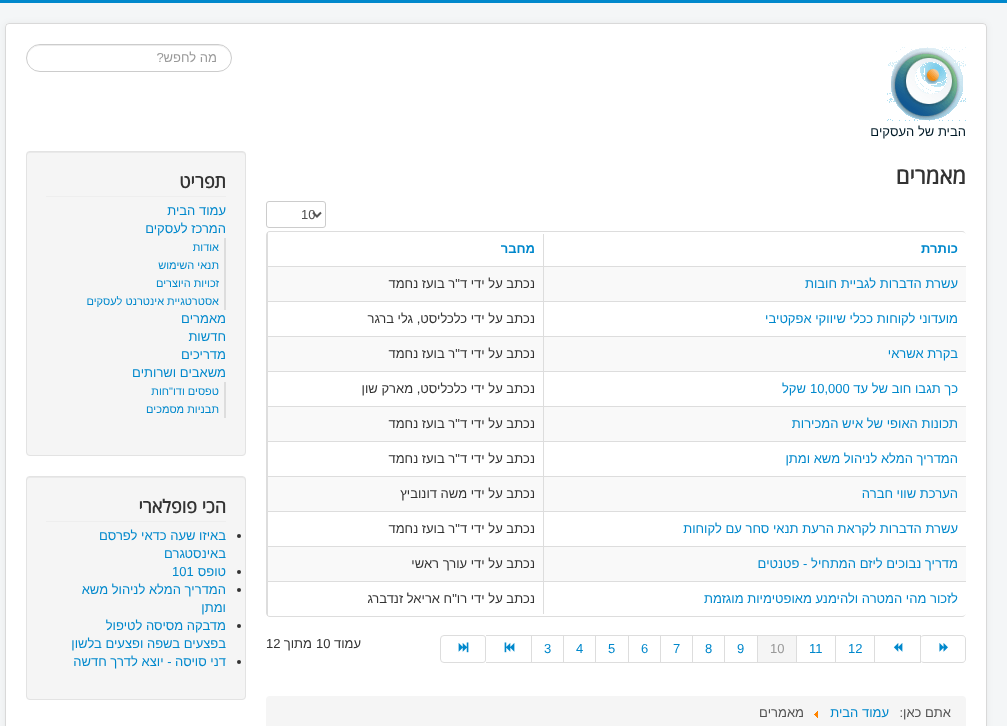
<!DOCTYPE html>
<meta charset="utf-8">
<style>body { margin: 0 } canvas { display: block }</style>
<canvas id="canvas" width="1007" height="726"></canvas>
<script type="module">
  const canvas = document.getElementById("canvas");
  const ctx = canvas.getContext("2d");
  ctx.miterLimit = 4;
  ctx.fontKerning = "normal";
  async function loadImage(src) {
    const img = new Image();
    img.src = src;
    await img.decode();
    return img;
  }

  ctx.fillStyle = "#f4f6f7";
  ctx.fillRect(0, 0, 1007, 726);
  ctx.fillStyle = "#0088cc";
  ctx.fillRect(0, 0, 1007, 3);
  ctx.fillStyle = "rgba(0, 0, 0, 0.05)";
  ctx.filter = "blur(3px)";
  ctx.beginPath();
  ctx.roundRect(5, 23, 982, 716, 4);
  ctx.fill();
  ctx.filter = "none";
  ctx.fillStyle = "#ffffff";
  ctx.beginPath();
  ctx.roundRect(5, 23, 982, 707, 4);
  ctx.fill();
  ctx.beginPath();
  ctx.roundRect(5.5, 23.5, 981, 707, 3.5);
  ctx.strokeStyle = "rgba(0, 0, 0, 0.15)";
  ctx.stroke();
  ctx.fillStyle = "#ececec";
  ctx.beginPath();
  ctx.moveTo(40, 46);
  ctx.lineTo(218, 46);
  ctx.bezierCurveTo(225, 46, 231, 52, 231, 59);
  ctx.bezierCurveTo(232, 38, 196, 45, 188, 45);
  ctx.lineTo(70, 45);
  ctx.bezierCurveTo(62, 45, 26, 38, 27, 59);
  ctx.bezierCurveTo(27, 52, 33, 46, 40, 46);
  ctx.closePath();
  ctx.fill();
  ctx.beginPath();
  ctx.roundRect(26.5, 44.5, 205, 27, 13.5);
  ctx.strokeStyle = "#cccccc";
  ctx.stroke();
  ctx.direction = "rtl";
  ctx.font = "13px Liberation Sans";
  ctx.fillStyle = "#999999";
  ctx.fillText("מה לחפש?", 217, 62);
  ctx.drawImage(await loadImage("img1.png"), 887, 47, 79, 74);
  ctx.fillStyle = "#001a27";
  ctx.fillText("הבית של העסקים", 966, 136);
  ctx.font = "bold 22px Open Sans";
  ctx.fillStyle = "#333333";
  ctx.fillText("מאמרים", 966, 184);
  ctx.beginPath();
  ctx.roundRect(266.5, 201.5, 59, 26, 2.5);
  ctx.stroke();
  ctx.beginPath();
  ctx.moveTo(313, 212.5);
  ctx.lineTo(317, 216.5);
  ctx.lineTo(321, 212.5);
  ctx.strokeStyle = "#555555";
  ctx.lineWidth = 2;
  ctx.stroke();
  ctx.direction = "ltr";
  ctx.font = "13px Liberation Sans";
  ctx.fillStyle = "#515151";
  ctx.fillText("10", 301, 219);
  ctx.fillStyle = "#dddddd";
  ctx.beginPath();
  ctx.moveTo(270, 231);
  ctx.lineTo(962, 231);
  ctx.bezierCurveTo(964, 231, 966, 233, 966, 235);
  ctx.lineTo(966, 613);
  ctx.bezierCurveTo(966, 615, 964, 617, 962, 617);
  ctx.lineTo(270, 617);
  ctx.bezierCurveTo(268, 617, 266, 615, 266, 613);
  ctx.lineTo(266, 235);
  ctx.bezierCurveTo(266, 233, 268, 231, 270, 231);
  ctx.closePath();
  ctx.moveTo(270, 232);
  ctx.lineTo(962, 232);
  ctx.bezierCurveTo(964, 232, 966, 233, 966, 235);
  ctx.lineTo(966, 613);
  ctx.bezierCurveTo(966, 615, 964, 616, 962, 616);
  ctx.lineTo(270, 616);
  ctx.bezierCurveTo(268, 616, 267, 615, 267, 613);
  ctx.lineTo(267, 235);
  ctx.bezierCurveTo(267, 233, 268, 232, 270, 232);
  ctx.closePath();
  ctx.fill("evenodd");
  ctx.fillRect(543, 234, 1, 32);
  ctx.direction = "rtl";
  ctx.font = "bold 13px Liberation Sans";
  ctx.fillStyle = "#0088cc";
  ctx.fillText("כותרת", 958, 253);
  ctx.fillStyle = "#dddddd";
  ctx.fillRect(267, 232, 1, 34);
  ctx.fillStyle = "#0088cc";
  ctx.fillText("מחבר", 535, 253);
  ctx.fillStyle = "#f9f9f9";
  ctx.fillRect(544, 267, 422, 34);
  ctx.fillStyle = "#dddddd";
  ctx.fillRect(267, 266, 699, 1);
  ctx.fillRect(543, 266, 1, 35);
  ctx.font = "13px Liberation Sans";
  ctx.fillStyle = "#0088cc";
  ctx.fillText("עשרת הדברות לגביית חובות", 958, 288);
  ctx.fillStyle = "#f9f9f9";
  ctx.fillRect(268, 267, 275, 34);
  ctx.fillStyle = "#dddddd";
  ctx.fillRect(267, 266, 1, 35);
  ctx.fillStyle = "#333333";
  ctx.fillText("נכתב על ידי ד\"ר בועז נחמד", 535, 288);
  ctx.fillStyle = "#dddddd";
  ctx.fillRect(267, 301, 699, 1);
  ctx.fillRect(543, 301, 1, 35);
  ctx.fillStyle = "#0088cc";
  ctx.fillText("מועדוני לקוחות ככלי שיווקי אפקטיבי", 958, 323);
  ctx.fillStyle = "#dddddd";
  ctx.fillRect(267, 301, 1, 35);
  ctx.fillStyle = "#333333";
  ctx.fillText("נכתב על ידי כלכליסט, גלי ברגר", 535, 323);
  ctx.fillStyle = "#f9f9f9";
  ctx.fillRect(544, 337, 422, 34);
  ctx.fillStyle = "#dddddd";
  ctx.fillRect(267, 336, 699, 1);
  ctx.fillRect(543, 336, 1, 35);
  ctx.fillStyle = "#0088cc";
  ctx.fillText("בקרת אשראי", 958, 358);
  ctx.fillStyle = "#f9f9f9";
  ctx.fillRect(268, 337, 275, 34);
  ctx.fillStyle = "#dddddd";
  ctx.fillRect(267, 336, 1, 35);
  ctx.fillStyle = "#333333";
  ctx.fillText("נכתב על ידי ד\"ר בועז נחמד", 535, 358);
  ctx.fillStyle = "#dddddd";
  ctx.fillRect(267, 371, 699, 1);
  ctx.fillRect(543, 371, 1, 35);
  ctx.fillStyle = "#0088cc";
  ctx.fillText("כך תגבו חוב של עד", 958, 393);
  ctx.direction = "ltr";
  ctx.fillText("10,000", 810, 393);
  ctx.direction = "rtl";
  ctx.fillText("שקל", 806, 393);
  ctx.fillStyle = "#dddddd";
  ctx.fillRect(267, 371, 1, 35);
  ctx.fillStyle = "#333333";
  ctx.fillText("נכתב על ידי כלכליסט, מארק שון", 535, 393);
  ctx.fillStyle = "#f9f9f9";
  ctx.fillRect(544, 407, 422, 34);
  ctx.fillStyle = "#dddddd";
  ctx.fillRect(267, 406, 699, 1);
  ctx.fillRect(543, 406, 1, 35);
  ctx.fillStyle = "#0088cc";
  ctx.fillText("תכונות האופי של איש המכירות", 958, 428);
  ctx.fillStyle = "#f9f9f9";
  ctx.fillRect(268, 407, 275, 34);
  ctx.fillStyle = "#dddddd";
  ctx.fillRect(267, 406, 1, 35);
  ctx.fillStyle = "#333333";
  ctx.fillText("נכתב על ידי ד\"ר בועז נחמד", 535, 428);
  ctx.fillStyle = "#dddddd";
  ctx.fillRect(267, 441, 699, 1);
  ctx.fillRect(543, 441, 1, 35);
  ctx.fillStyle = "#0088cc";
  ctx.fillText("המדריך המלא לניהול משא ומתן", 958, 463);
  ctx.fillStyle = "#dddddd";
  ctx.fillRect(267, 441, 1, 35);
  ctx.fillStyle = "#333333";
  ctx.fillText("נכתב על ידי ד\"ר בועז נחמד", 535, 463);
  ctx.fillStyle = "#f9f9f9";
  ctx.fillRect(544, 477, 422, 34);
  ctx.fillStyle = "#dddddd";
  ctx.fillRect(267, 476, 699, 1);
  ctx.fillRect(543, 476, 1, 35);
  ctx.fillStyle = "#0088cc";
  ctx.fillText("הערכת שווי חברה", 958, 498);
  ctx.fillStyle = "#f9f9f9";
  ctx.fillRect(268, 477, 275, 34);
  ctx.fillStyle = "#dddddd";
  ctx.fillRect(267, 476, 1, 35);
  ctx.fillStyle = "#333333";
  ctx.fillText("נכתב על ידי משה דונוביץ", 535, 498);
  ctx.fillStyle = "#dddddd";
  ctx.fillRect(267, 511, 699, 1);
  ctx.fillRect(543, 511, 1, 35);
  ctx.fillStyle = "#0088cc";
  ctx.fillText("עשרת הדברות לקראת הרעת תנאי סחר עם לקוחות", 958, 533);
  ctx.fillStyle = "#dddddd";
  ctx.fillRect(267, 511, 1, 35);
  ctx.fillStyle = "#333333";
  ctx.fillText("נכתב על ידי ד\"ר בועז נחמד", 535, 533);
  ctx.fillStyle = "#f9f9f9";
  ctx.fillRect(544, 547, 422, 34);
  ctx.fillStyle = "#dddddd";
  ctx.fillRect(267, 546, 699, 1);
  ctx.fillRect(543, 546, 1, 35);
  ctx.fillStyle = "#0088cc";
  ctx.fillText("מדריך נבוכים ליזם המתחיל - פטנטים", 958, 568);
  ctx.fillStyle = "#f9f9f9";
  ctx.fillRect(268, 547, 275, 34);
  ctx.fillStyle = "#dddddd";
  ctx.fillRect(267, 546, 1, 35);
  ctx.fillStyle = "#333333";
  ctx.fillText("נכתב על ידי עורך ראשי", 535, 568);
  ctx.fillStyle = "#dddddd";
  ctx.fillRect(267, 581, 699, 1);
  ctx.fillRect(543, 581, 1, 33);
  ctx.fillStyle = "#0088cc";
  ctx.fillText("לזכור מהי המטרה ולהימנע מאופטימיות מוגזמת", 958, 603);
  ctx.fillStyle = "#dddddd";
  ctx.fillRect(267, 581, 1, 35);
  ctx.fillStyle = "#333333";
  ctx.fillText("נכתב על ידי רו\"ח אריאל זנדברג", 535, 603);
  ctx.fillStyle = "#dddddd";
  ctx.fillRect(486, 635, 435, 1);
  ctx.fillRect(531, 635, 1, 28);
  ctx.fillRect(486, 662, 46, 1);
  ctx.drawImage(await loadImage("img2.png"), 504, 642, 11, 11);
  ctx.beginPath();
  ctx.roundRect(440.5, 635.5, 45, 27, [3.5, 2.5, 2.5, 3.5]);
  ctx.strokeStyle = "#dddddd";
  ctx.lineWidth = 1;
  ctx.stroke();
  ctx.drawImage(await loadImage("img3.png"), 458, 642, 11, 11);
  ctx.beginPath();
  ctx.moveTo(924, 635);
  ctx.lineTo(962, 635);
  ctx.bezierCurveTo(964, 635, 966, 637, 966, 639);
  ctx.lineTo(966, 659);
  ctx.bezierCurveTo(966, 661, 964, 663, 962, 663);
  ctx.lineTo(924, 663);
  ctx.bezierCurveTo(922, 663, 921, 662, 921, 660);
  ctx.lineTo(921, 638);
  ctx.bezierCurveTo(921, 636, 922, 635, 924, 635);
  ctx.closePath();
  ctx.moveTo(924, 636);
  ctx.lineTo(962, 636);
  ctx.bezierCurveTo(964, 636, 965, 637, 965, 639);
  ctx.lineTo(965, 659);
  ctx.bezierCurveTo(965, 661, 964, 662, 962, 662);
  ctx.lineTo(924, 662);
  ctx.bezierCurveTo(922, 662, 921, 661, 921, 660);
  ctx.lineTo(921, 638);
  ctx.bezierCurveTo(921, 637, 922, 636, 924, 636);
  ctx.closePath();
  ctx.fill("evenodd");
  ctx.drawImage(await loadImage("img4.png"), 939, 643, 9, 9);
  ctx.fillRect(920, 635, 1, 28);
  ctx.fillRect(875, 662, 46, 1);
  ctx.drawImage(await loadImage("img5.png"), 893, 643, 10, 9);
  ctx.fillRect(874, 635, 1, 28);
  ctx.fillRect(836, 662, 39, 1);
  ctx.direction = "ltr";
  ctx.fillStyle = "#0088cc";
  ctx.fillText("12", 848, 653);
  ctx.fillStyle = "#dddddd";
  ctx.fillRect(835, 635, 1, 28);
  ctx.fillRect(797, 662, 39, 1);
  ctx.fillStyle = "#0088cc";
  ctx.fillText("11", 809, 653);
  ctx.fillStyle = "#f5f5f5";
  ctx.fillRect(758, 636, 38, 26);
  ctx.fillStyle = "#dddddd";
  ctx.fillRect(796, 635, 1, 28);
  ctx.fillRect(758, 662, 39, 1);
  ctx.fillStyle = "#999999";
  ctx.fillText("10", 770, 653);
  ctx.fillStyle = "#dddddd";
  ctx.fillRect(757, 635, 1, 28);
  ctx.fillRect(725, 662, 33, 1);
  ctx.fillStyle = "#0088cc";
  ctx.fillText("9", 737, 653);
  ctx.fillStyle = "#dddddd";
  ctx.fillRect(724, 635, 1, 28);
  ctx.fillRect(693, 662, 32, 1);
  ctx.fillStyle = "#0088cc";
  ctx.fillText("8", 705, 653);
  ctx.fillStyle = "#dddddd";
  ctx.fillRect(692, 635, 1, 28);
  ctx.fillRect(661, 662, 32, 1);
  ctx.fillStyle = "#0088cc";
  ctx.fillText("7", 673, 653);
  ctx.fillStyle = "#dddddd";
  ctx.fillRect(660, 635, 1, 28);
  ctx.fillRect(629, 662, 32, 1);
  ctx.fillStyle = "#0088cc";
  ctx.fillText("6", 641, 653);
  ctx.fillStyle = "#dddddd";
  ctx.fillRect(628, 635, 1, 28);
  ctx.fillRect(596, 662, 33, 1);
  ctx.fillStyle = "#0088cc";
  ctx.fillText("5", 608, 653);
  ctx.fillStyle = "#dddddd";
  ctx.fillRect(595, 635, 1, 28);
  ctx.fillRect(564, 662, 32, 1);
  ctx.fillStyle = "#0088cc";
  ctx.fillText("4", 576, 653);
  ctx.fillStyle = "#dddddd";
  ctx.fillRect(563, 635, 1, 28);
  ctx.fillRect(532, 662, 32, 1);
  ctx.fillStyle = "#0088cc";
  ctx.fillText("3", 544, 653);
  ctx.direction = "rtl";
  ctx.fillStyle = "#333333";
  ctx.fillText("עמוד", 361, 648);
  ctx.direction = "ltr";
  ctx.fillText("10", 316, 648);
  ctx.direction = "rtl";
  ctx.fillText("מתוך", 312, 648);
  ctx.direction = "ltr";
  ctx.fillText("12", 266, 648);
  ctx.fillStyle = "#f5f5f5";
  ctx.beginPath();
  ctx.roundRect(266, 696, 700, 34, 4);
  ctx.fill();
  ctx.direction = "rtl";
  ctx.fillStyle = "#515151";
  ctx.fillText("אתם כאן:", 951, 717);
  ctx.fillStyle = "#0088cc";
  ctx.fillText("עמוד הבית", 889, 717);
  ctx.drawImage(await loadImage("img6.png"), 814, 711, 4, 7);
  ctx.fillStyle = "#515151";
  ctx.fillText("מאמרים", 804, 717);
  ctx.fillStyle = "#f5f5f5";
  ctx.beginPath();
  ctx.roundRect(26, 151, 220, 305, 4);
  ctx.fill();
  ctx.fillStyle = "#e9e9e9";
  ctx.beginPath();
  ctx.moveTo(30, 153);
  ctx.lineTo(242, 153);
  ctx.bezierCurveTo(244, 153, 245, 154, 245, 156);
  ctx.lineTo(245, 155);
  ctx.bezierCurveTo(245, 153, 244, 152, 242, 152);
  ctx.lineTo(30, 152);
  ctx.bezierCurveTo(28, 152, 27, 153, 27, 155);
  ctx.lineTo(27, 156);
  ctx.bezierCurveTo(27, 154, 28, 153, 30, 153);
  ctx.closePath();
  ctx.fill();
  ctx.beginPath();
  ctx.roundRect(26.5, 151.5, 219, 304, 3.5);
  ctx.strokeStyle = "#e3e3e3";
  ctx.stroke();
  ctx.fillStyle = "#eeeeee";
  ctx.fillRect(46, 196, 180, 1);
  ctx.font = "bold 18px Open Sans";
  ctx.fillStyle = "#333333";
  ctx.fillText("תפריט", 226, 188);
  ctx.font = "13px Liberation Sans";
  ctx.fillStyle = "#0088cc";
  ctx.fillText("עמוד הבית", 226, 215);
  ctx.fillText("המרכז לעסקים", 226, 233);
  ctx.fillStyle = "#dddddd";
  ctx.fillRect(224, 238, 2, 72);
  ctx.font = "11px Liberation Sans";
  ctx.fillStyle = "#0088cc";
  ctx.fillText("אודות", 219, 251);
  ctx.fillText("תנאי השימוש", 219, 269);
  ctx.fillText("זכויות היוצרים", 219, 287);
  ctx.fillText("אסטרטגיית אינטרנט לעסקים", 219, 305);
  ctx.font = "13px Liberation Sans";
  ctx.fillText("מאמרים", 226, 323);
  ctx.fillText("חדשות", 226, 341);
  ctx.fillText("מדריכים", 226, 359);
  ctx.fillText("משאבים ושרותים", 226, 377);
  ctx.fillStyle = "#dddddd";
  ctx.fillRect(224, 382, 2, 36);
  ctx.font = "11px Liberation Sans";
  ctx.fillStyle = "#0088cc";
  ctx.fillText("טפסים ודו\"חות", 219, 395);
  ctx.fillText("תבניות מסמכים", 219, 413);
  ctx.fillStyle = "#f5f5f5";
  ctx.beginPath();
  ctx.roundRect(26, 476, 220, 224, 4);
  ctx.fill();
  ctx.fillStyle = "#e9e9e9";
  ctx.beginPath();
  ctx.moveTo(30, 478);
  ctx.lineTo(242, 478);
  ctx.bezierCurveTo(244, 478, 245, 479, 245, 481);
  ctx.lineTo(245, 480);
  ctx.bezierCurveTo(245, 478, 244, 477, 242, 477);
  ctx.lineTo(30, 477);
  ctx.bezierCurveTo(28, 477, 27, 478, 27, 480);
  ctx.lineTo(27, 481);
  ctx.bezierCurveTo(27, 479, 28, 478, 30, 478);
  ctx.closePath();
  ctx.fill();
  ctx.beginPath();
  ctx.roundRect(26.5, 476.5, 219, 223, 3.5);
  ctx.stroke();
  ctx.fillStyle = "#eeeeee";
  ctx.fillRect(46, 521, 180, 1);
  ctx.font = "bold 18px Open Sans";
  ctx.fillStyle = "#333333";
  ctx.fillText("הכי פופלארי", 226, 513);
  ctx.beginPath();
  ctx.arc(239, 536, 2, 0, Math.PI * 2);
  ctx.fill();
  ctx.font = "13px Liberation Sans";
  ctx.fillStyle = "#0088cc";
  ctx.fillText("באיזו שעה כדאי לפרסם", 226, 540);
  ctx.fillText("באינסטגרם", 226, 558);
  ctx.fillStyle = "#333333";
  ctx.beginPath();
  ctx.arc(239, 572, 2, 0, Math.PI * 2);
  ctx.fill();
  ctx.fillStyle = "#0088cc";
  ctx.fillText("טופס", 226, 576);
  ctx.direction = "ltr";
  ctx.fillText("101", 172, 576);
  ctx.fillStyle = "#333333";
  ctx.beginPath();
  ctx.arc(239, 590, 2, 0, Math.PI * 2);
  ctx.fill();
  ctx.direction = "rtl";
  ctx.fillStyle = "#0088cc";
  ctx.fillText("המדריך המלא לניהול משא", 226, 594);
  ctx.fillText("ומתן", 226, 612);
  ctx.fillStyle = "#333333";
  ctx.beginPath();
  ctx.arc(239, 626, 2, 0, Math.PI * 2);
  ctx.fill();
  ctx.fillStyle = "#0088cc";
  ctx.fillText("מדבקה מסיסה לטיפול", 226, 630);
  ctx.fillText("בפצעים בשפה ופצעים בלשון", 226, 648);
  ctx.fillStyle = "#333333";
  ctx.beginPath();
  ctx.arc(239, 662, 2, 0, Math.PI * 2);
  ctx.fill();
  ctx.fillStyle = "#0088cc";
  ctx.fillText("דני סויסה - יוצא לדרך חדשה", 226, 666);
</script>
